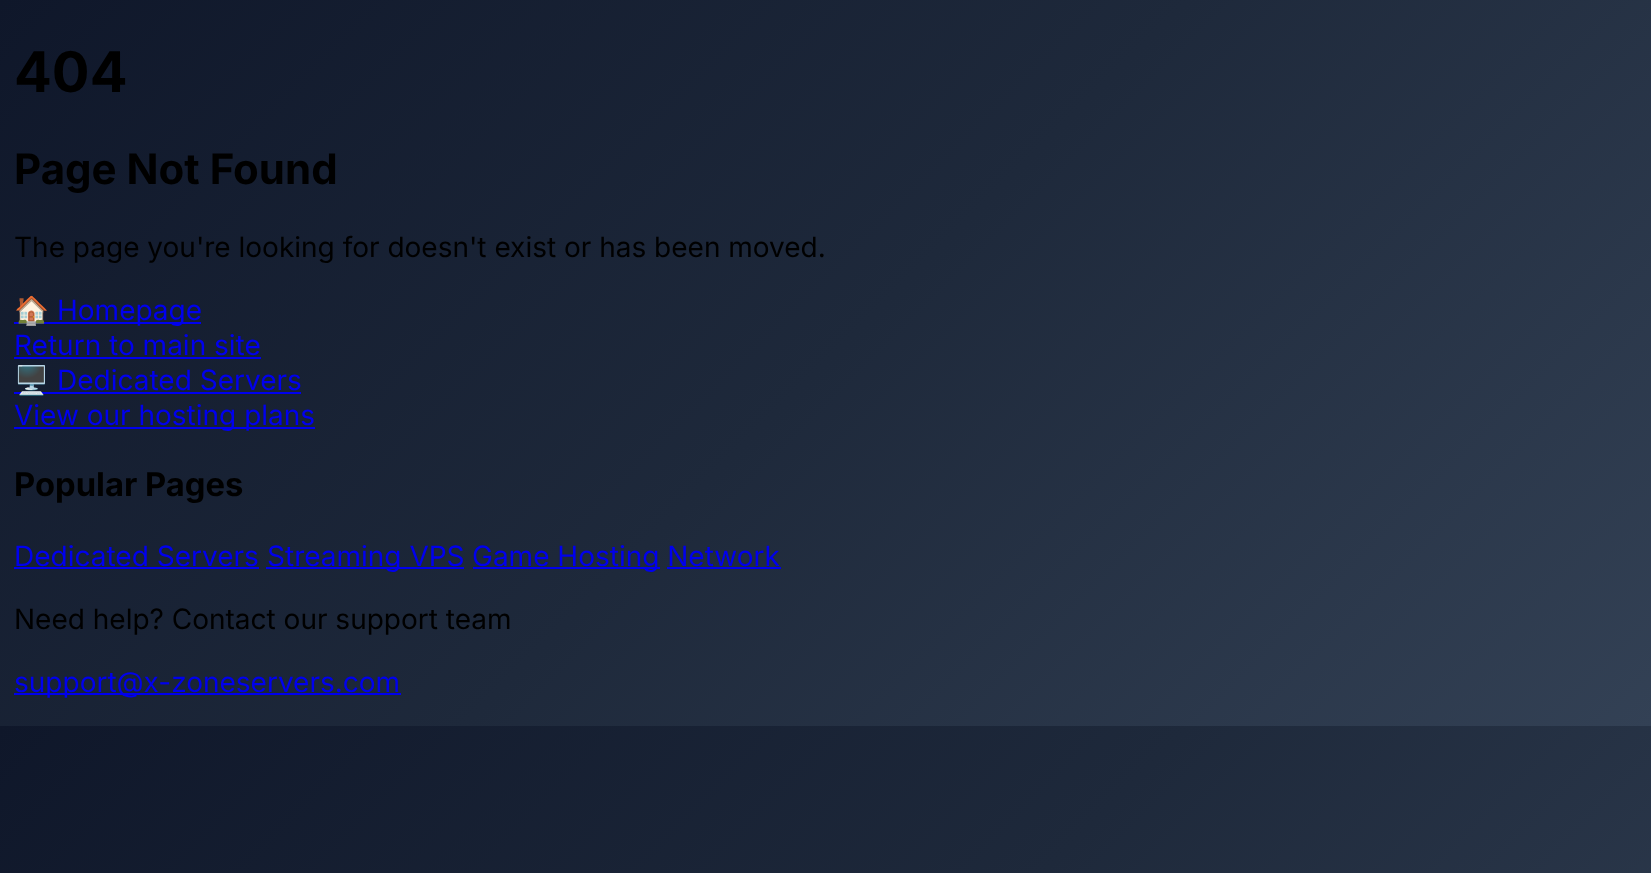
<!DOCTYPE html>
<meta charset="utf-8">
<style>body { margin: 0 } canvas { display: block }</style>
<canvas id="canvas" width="1651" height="873"></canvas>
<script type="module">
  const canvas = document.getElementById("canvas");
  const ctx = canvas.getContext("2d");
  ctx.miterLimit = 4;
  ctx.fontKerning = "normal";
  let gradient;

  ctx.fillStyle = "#ffffff";
  ctx.fillRect(0, 0, 1651, 873);
  gradient = ctx.createLinearGradient(231, -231, 1421, 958);
  gradient.addColorStop(0, "#0f172a");
  gradient.addColorStop(0.5, "#1e293b");
  gradient.addColorStop(1, "#334155");
  ctx.fillStyle = gradient;
  ctx.fillRect(0, 0, 1651, 726);
  gradient = ctx.createLinearGradient(231, 495, 1421, 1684);
  gradient.addColorStop(0, "#0f172a");
  gradient.addColorStop(0.5, "#1e293b");
  gradient.addColorStop(1, "#334155");
  ctx.fillStyle = gradient;
  ctx.fillRect(0, 726, 1651, 147);
  ctx.font = "bold 56px Inter";
  ctx.fillStyle = "#000000";
  ctx.fillText("404", 14, 92);
  ctx.font = "bold 42px Inter";
  ctx.fillText("Page Not Found", 14, 184);
  ctx.font = "28px Inter";
  ctx.fillText("The page you're looking for doesn't exist or has been moved.", 14, 257);
  ctx.fillStyle = "#0000ee";
  ctx.fillRect(14, 322, 187, 2);
  ctx.font = "28px Noto Color Emoji";
  ctx.fillText("🏠", 14, 320);
  ctx.font = "28px Inter";
  ctx.fillText("Homepage", 57, 320);
  ctx.fillText("Return to main site", 14, 355);
  ctx.fillRect(14, 357, 247, 2);
  ctx.fillRect(14, 392, 287, 2);
  ctx.font = "28px Noto Color Emoji";
  ctx.fillText("🖥️", 14, 390);
  ctx.font = "28px Inter";
  ctx.fillText("Dedicated Servers", 57, 390);
  ctx.fillRect(14, 427, 301, 2);
  ctx.fillText("View our hosting plans", 14, 425);
  ctx.font = "bold 32.75px Inter";
  ctx.fillStyle = "#000000";
  ctx.fillText("Popular Pages", 14, 496);
  ctx.font = "28px Inter";
  ctx.fillStyle = "#0000ee";
  ctx.fillText("Dedicated Servers", 14, 566);
  ctx.fillRect(14, 567, 245, 2);
  ctx.fillRect(266, 567, 198, 2);
  ctx.fillText("Streaming VPS", 267, 566);
  ctx.fillRect(473, 567, 187, 2);
  ctx.fillText("Game Hosting Network", 472, 566);
  ctx.fillRect(667, 567, 114, 2);
  ctx.fillStyle = "#000000";
  ctx.fillText("Need help? Contact our support team", 14, 629);
  ctx.fillStyle = "#0000ee";
  ctx.fillRect(14, 693, 387, 2);
  ctx.fillText("support@x-zoneservers.com", 14, 692);
</script>
